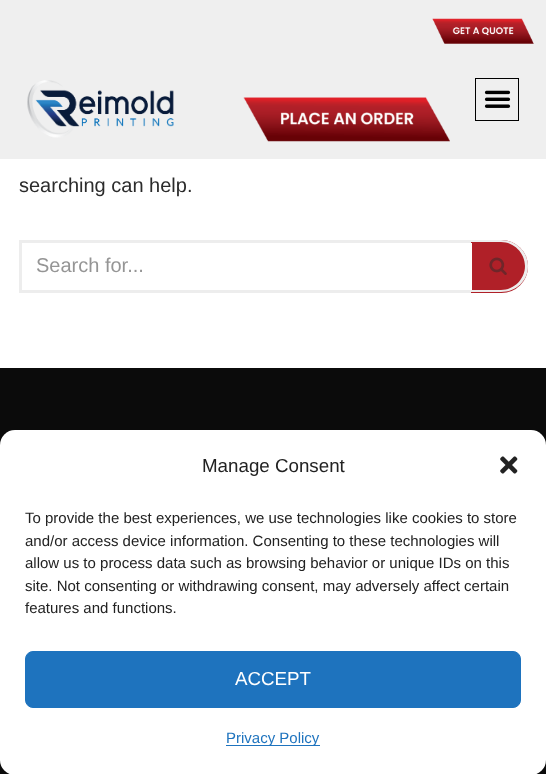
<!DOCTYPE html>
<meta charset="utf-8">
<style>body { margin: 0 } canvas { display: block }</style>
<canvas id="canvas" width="546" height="774"></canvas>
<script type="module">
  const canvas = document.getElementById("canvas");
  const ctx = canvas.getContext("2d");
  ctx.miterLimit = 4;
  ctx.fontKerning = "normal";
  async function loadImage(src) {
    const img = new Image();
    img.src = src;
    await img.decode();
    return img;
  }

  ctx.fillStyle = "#ffffff";
  ctx.fillRect(0, 0, 546, 774);
  ctx.fillStyle = "#efefef";
  ctx.fillRect(0, 0, 546, 159);
  ctx.drawImage(await loadImage("img1.png"), 432, 18, 102, 26);
  ctx.drawImage(await loadImage("img2.png"), 27, 80, 147, 58);
  ctx.drawImage(await loadImage("img3.png"), 243, 97, 207, 45);
  ctx.strokeStyle = "#000000";
  ctx.strokeRect(475.5, 78.5, 43, 42);
  ctx.drawImage(await loadImage("img4.png"), 484, 90, 27, 18);
  ctx.font = "20px Liberation Sans";
  ctx.fillStyle = "#2b2b2b";
  ctx.fillText("searching can help.", 19, 192);
  ctx.fillStyle = "#ededed";
  ctx.fillRect(19, 240, 452, 3);
  ctx.fillRect(19, 290, 452, 3);
  ctx.fillRect(19, 240, 3, 53);
  ctx.fillStyle = "#959595";
  ctx.fillText("Search for...", 36, 272);
  ctx.fillStyle = "#b02028";
  ctx.beginPath();
  ctx.roundRect(471, 240, 57, 53, [0, 26.5, 26.5, 0]);
  ctx.fill();
  ctx.fillStyle = "#ededed";
  ctx.beginPath();
  ctx.moveTo(471, 240);
  ctx.lineTo(501, 240);
  ctx.bezierCurveTo(516, 240, 528, 252, 528, 266);
  ctx.bezierCurveTo(528, 281, 516, 292, 501, 292);
  ctx.lineTo(471, 292);
  ctx.closePath();
  ctx.moveTo(471, 242);
  ctx.lineTo(501, 242);
  ctx.bezierCurveTo(514, 242, 525, 253, 525, 266);
  ctx.bezierCurveTo(525, 279, 514, 290, 501, 290);
  ctx.lineTo(471, 290);
  ctx.closePath();
  ctx.fill("evenodd");
  ctx.fillStyle = "#ffffff";
  ctx.fillRect(471, 243, 1, 47);
  ctx.drawImage(await loadImage("img5.png"), 489, 257, 18, 18);
  ctx.fillStyle = "#0b0b0b";
  ctx.fillRect(0, 368, 546, 406);
  ctx.fillStyle = "#ffffff";
  ctx.beginPath();
  ctx.roundRect(0, 430, 546, 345, 15);
  ctx.fill();
  ctx.font = "18.75px Liberation Sans";
  ctx.fillStyle = "#222222";
  ctx.fillText("Manage Consent", 202, 472);
  ctx.drawImage(await loadImage("img6.png"), 500, 456, 18, 18);
  ctx.font = "15px Liberation Sans";
  ctx.fillText("To provide the best experiences, we use technologies like cookies to store", 25, 523);
  ctx.fillText("and/or access device information. Consenting to these technologies will", 25, 546);
  ctx.fillText("allow us to process data such as browsing behavior or unique IDs on this", 25, 568);
  ctx.fillText("site. Not consenting or withdrawing consent, may adversely affect certain", 25, 591);
  ctx.fillText("features and functions.", 25, 613);
  ctx.fillStyle = "#1e73be";
  ctx.beginPath();
  ctx.roundRect(25.5, 651.5, 495, 56, 7.5);
  ctx.fill();
  ctx.strokeStyle = "#1e73be";
  ctx.stroke();
  ctx.font = "18.75px Liberation Sans";
  ctx.fillStyle = "#ffffff";
  ctx.fillText("ACCEPT", 235, 685);
  ctx.fillStyle = "#1e73be";
  ctx.fillRect(226, 745, 94, 1);
  ctx.font = "15px Liberation Sans";
  ctx.fillText("Privacy Policy", 226, 743);
</script>
